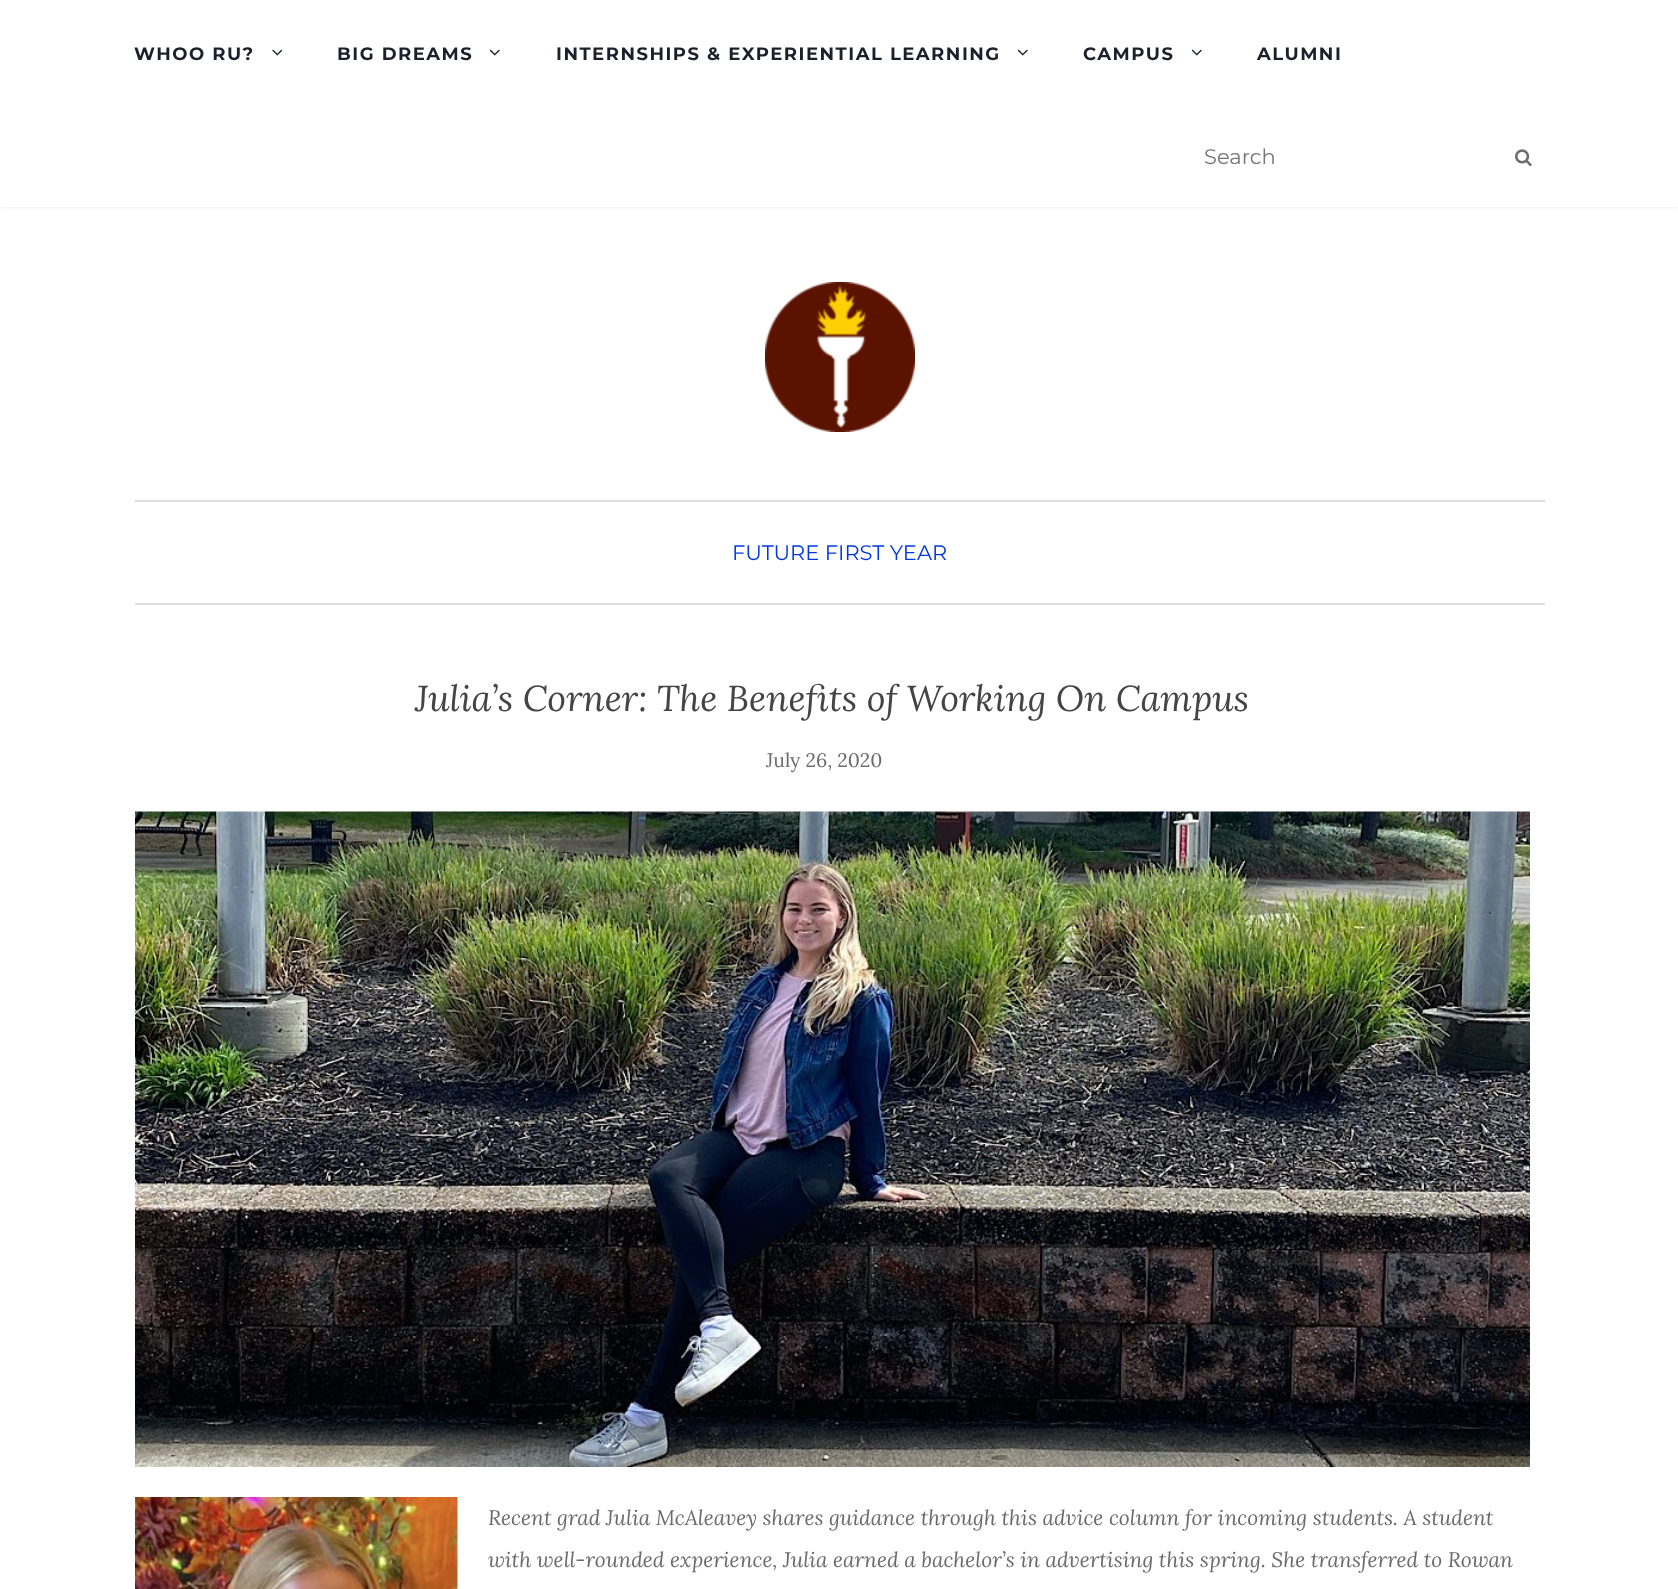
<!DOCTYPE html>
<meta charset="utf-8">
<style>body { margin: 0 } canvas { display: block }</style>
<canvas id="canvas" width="1678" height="1589"></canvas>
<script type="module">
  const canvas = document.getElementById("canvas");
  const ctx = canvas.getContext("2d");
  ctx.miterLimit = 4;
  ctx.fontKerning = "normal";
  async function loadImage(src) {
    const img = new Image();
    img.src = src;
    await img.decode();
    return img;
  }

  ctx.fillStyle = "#ffffff";
  ctx.fillRect(0, 0, 1678, 1589);
  ctx.save();
  ctx.beginPath();
  ctx.rect(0, 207, 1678, 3);
  ctx.clip();
  ctx.fillStyle = "#e3e3e3";
  ctx.filter = "blur(1.5px)";
  ctx.beginPath();
  ctx.rect(0, 0, 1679, 207);
  ctx.fill();
  ctx.filter = "none";
  ctx.restore();
  ctx.letterSpacing = "1.5px";
  ctx.font = "bold 18px Montserrat";
  ctx.fillStyle = "#1c202a";
  ctx.fillText("WHOO RU?", 134, 60);
  ctx.drawImage(await loadImage("img1.png"), 272, 49, 11, 7);
  ctx.fillText("BIG DREAMS", 337, 60);
  ctx.drawImage(await loadImage("img2.png"), 489, 49, 11, 7);
  ctx.fillText("INTERNSHIPS & EXPERIENTIAL LEARNING", 556, 60);
  ctx.drawImage(await loadImage("img2.png"), 1017, 49, 11, 7);
  ctx.fillText("CAMPUS", 1083, 60);
  ctx.drawImage(await loadImage("img2.png"), 1191, 49, 11, 7);
  ctx.fillText("ALUMNI", 1257, 60);
  ctx.letterSpacing = "0px";
  ctx.font = "21px Montserrat";
  ctx.fillStyle = "#757575";
  ctx.fillText("Search", 1204, 164);
  ctx.drawImage(await loadImage("img3.png"), 1515, 149, 17, 17);
  ctx.drawImage(await loadImage("img4.png"), 765, 282, 150, 150);
  ctx.fillStyle = "#dddddd";
  ctx.fillRect(135, 500, 1410, 2);
  ctx.fillStyle = "#dedede";
  ctx.fillRect(135, 603, 1410, 2);
  ctx.fillStyle = "#0038e0";
  ctx.fillText("FUTURE FIRST YEAR", 732, 560);
  ctx.font = "italic 36px Lora";
  ctx.fillStyle = "#444444";
  ctx.fillText("Julia’s Corner: The Benefits of Working On Campus", 415, 711);
  ctx.font = "19.5px Lora";
  ctx.fillStyle = "#6b6b6b";
  ctx.fillText("July 26, 2020", 766, 767);
  ctx.drawImage(await loadImage("img5.png"), 135, 811, 1395, 656);
  ctx.drawImage(await loadImage("img6.png"), 135, 1497, 323, 92);
  ctx.font = "italic 21px Lora";
  ctx.fillText("Recent grad Julia McAleavey shares guidance through this advice column for incoming students. A student", 488, 1525);
  ctx.fillText("with well-rounded experience, Julia earned a bachelor’s in advertising this spring. She transferred to Rowan", 488, 1567);
</script>
